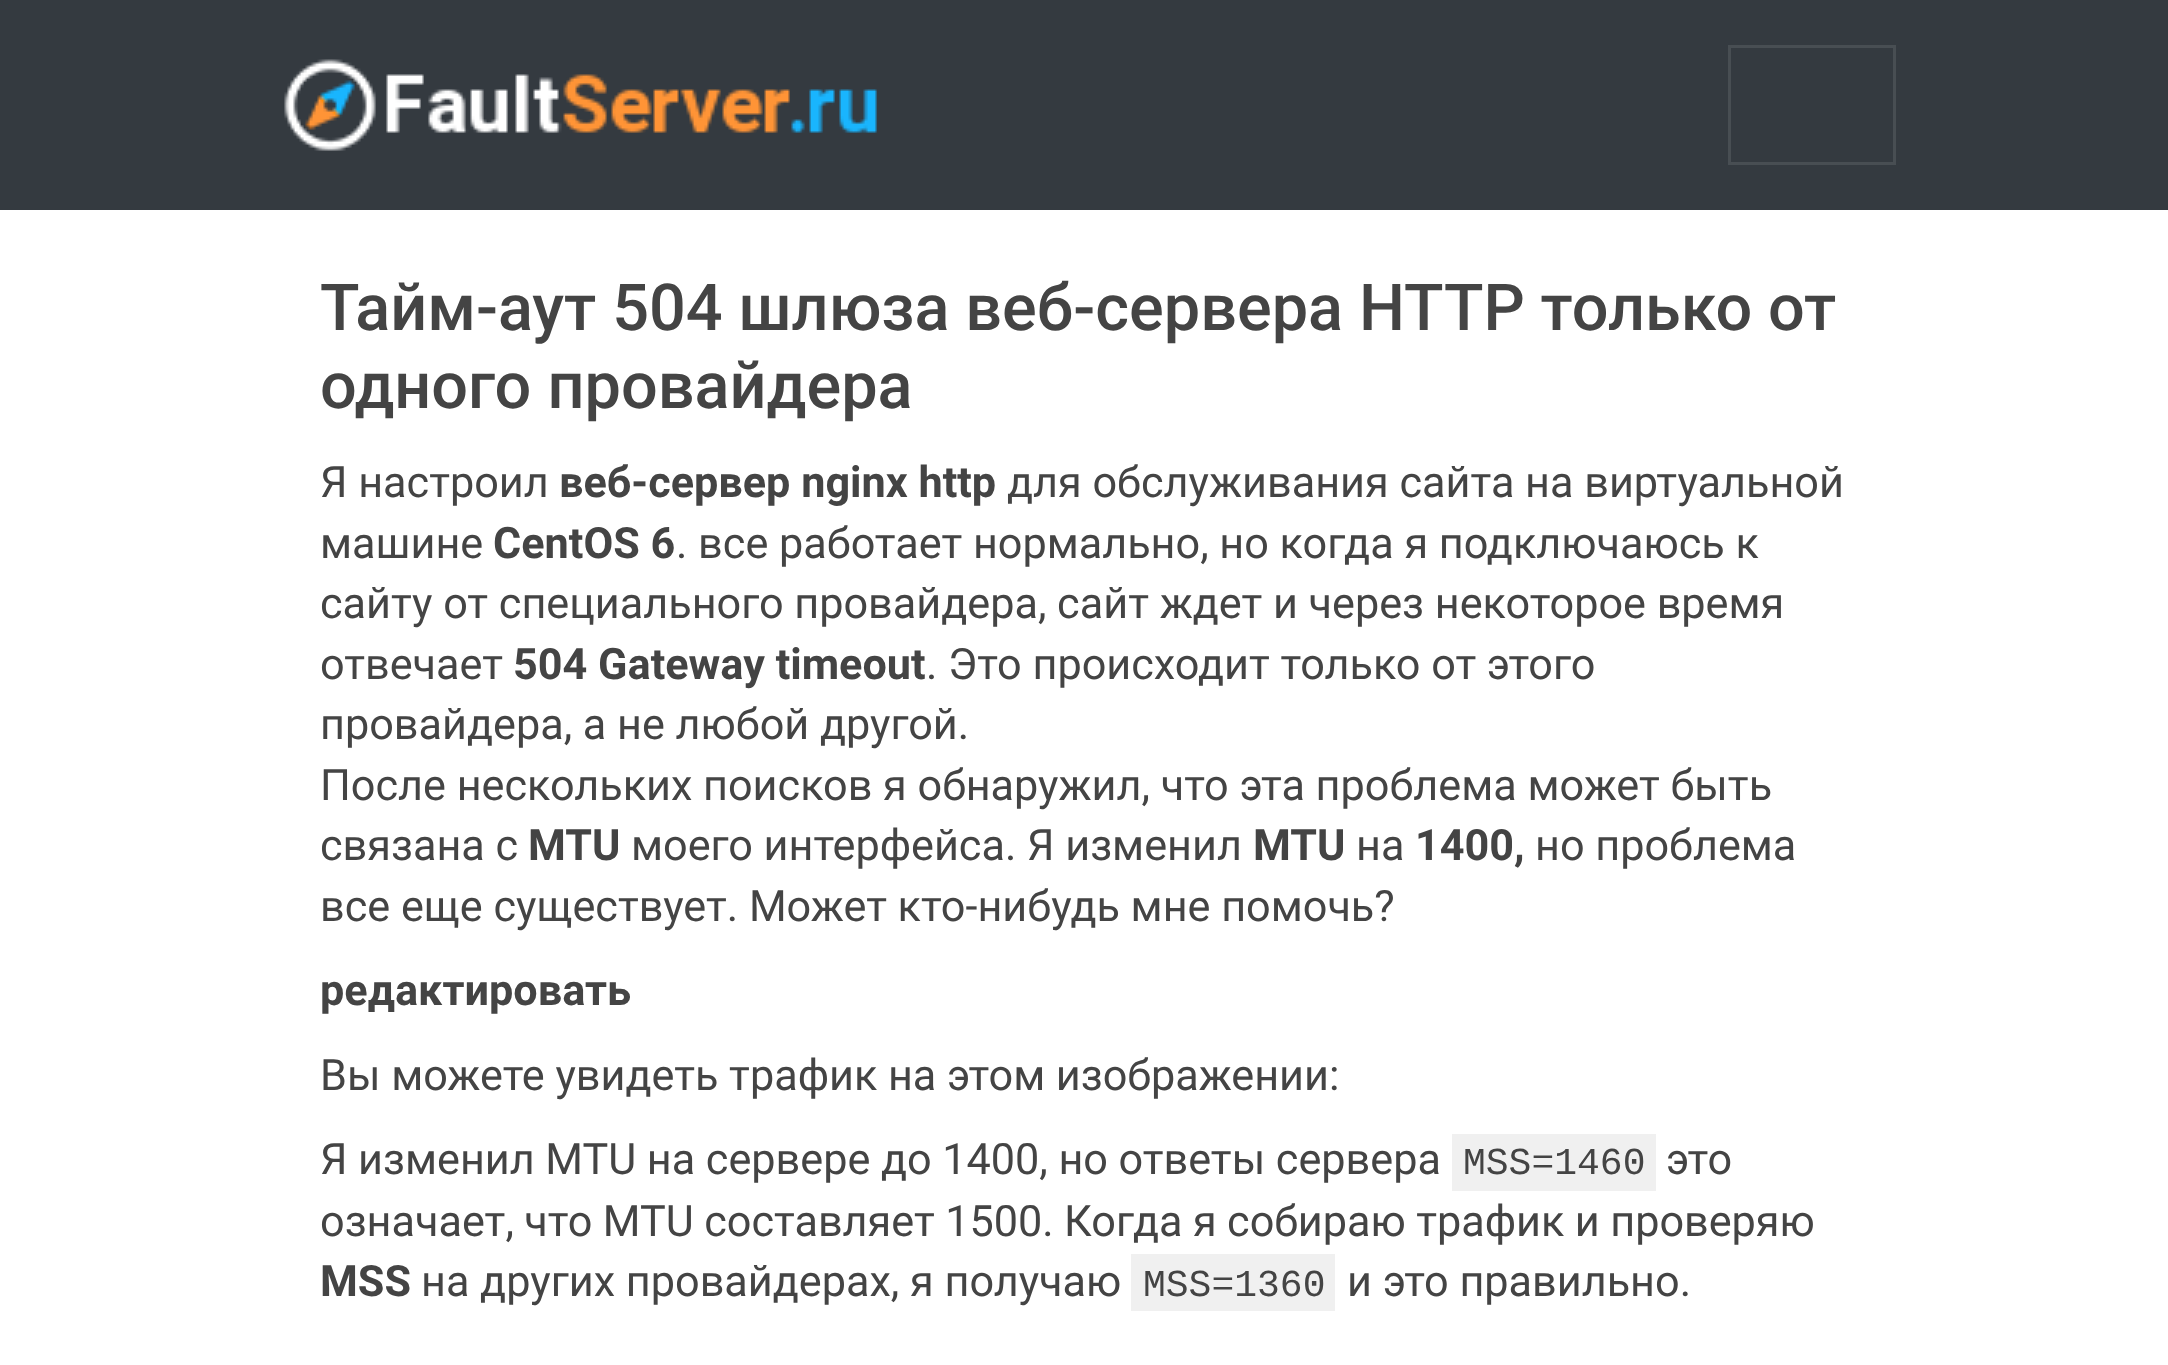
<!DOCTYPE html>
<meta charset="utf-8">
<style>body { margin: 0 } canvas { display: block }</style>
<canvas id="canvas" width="2168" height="1365"></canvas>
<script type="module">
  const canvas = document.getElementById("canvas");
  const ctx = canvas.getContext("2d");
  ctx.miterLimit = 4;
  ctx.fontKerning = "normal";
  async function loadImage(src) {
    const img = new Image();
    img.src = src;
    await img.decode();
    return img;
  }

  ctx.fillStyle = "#ffffff";
  ctx.fillRect(0, 0, 2168, 1365);
  ctx.fillStyle = "#343a40";
  ctx.fillRect(0, 0, 2168, 210);
  ctx.drawImage(await loadImage("img1.png"), 284, 59, 593, 92);
  ctx.strokeStyle = "#484e53";
  ctx.lineWidth = 3;
  ctx.strokeRect(1729.5, 46.5, 165, 117);
  ctx.wordSpacing = "-0.25px";
  ctx.font = "500 64.8px Roboto";
  ctx.fillStyle = "#444444";
  ctx.fillText("Тайм-аут 504 шлюза веб-сервера HTTP только от", 320, 330);
  ctx.wordSpacing = "0px";
  ctx.fillText("одного провайдера", 320, 408);
  ctx.font = "43.2px Roboto";
  ctx.fillText("Я настроил", 320, 497);
  ctx.font = "bold 43.2px Roboto";
  ctx.fillText("веб-сервер nginx http", 559, 497);
  ctx.font = "43.2px Roboto";
  ctx.fillText("для обслуживания сайта на виртуальной", 1007, 497);
  ctx.fillText("машине", 320, 558);
  ctx.font = "bold 43.2px Roboto";
  ctx.fillText("CentOS 6", 493, 558);
  ctx.font = "43.2px Roboto";
  ctx.fillText(". все работает нормально, но когда я подключаюсь к", 676, 558);
  ctx.fillText("сайту от специального провайдера, сайт ждет и через некоторое время", 320, 618);
  ctx.fillText("отвечает", 320, 679);
  ctx.font = "bold 43.2px Roboto";
  ctx.fillText("504 Gateway timeout", 513, 679);
  ctx.font = "43.2px Roboto";
  ctx.fillText(". Это происходит только от этого", 926, 679);
  ctx.fillText("провайдера, а не любой другой.", 320, 739);
  ctx.fillText("После нескольких поисков я обнаружил, что эта проблема может быть", 320, 800);
  ctx.fillText("связана с", 320, 860);
  ctx.font = "bold 43.2px Roboto";
  ctx.fillText("MTU", 528, 860);
  ctx.font = "43.2px Roboto";
  ctx.fillText("моего интерфейса. Я изменил", 631, 860);
  ctx.font = "bold 43.2px Roboto";
  ctx.fillText("MTU", 1253, 860);
  ctx.font = "43.2px Roboto";
  ctx.fillText("на", 1356, 860);
  ctx.font = "bold 43.2px Roboto";
  ctx.fillText("1400,", 1415, 860);
  ctx.font = "43.2px Roboto";
  ctx.fillText("но проблема", 1535, 860);
  ctx.fillText("все еще существует. Может кто-нибудь мне помочь?", 320, 921);
  ctx.font = "bold 43.2px Roboto";
  ctx.fillText("редактировать", 320, 1005);
  ctx.font = "43.2px Roboto";
  ctx.fillText("Вы можете увидеть трафик на этом изображении:", 320, 1090);
  ctx.wordSpacing = "-0.1px";
  ctx.fillText("Я изменил MTU на сервере до 1400, но ответы сервера", 320, 1174);
  ctx.fillStyle = "#f0f0f0";
  ctx.fillRect(1452, 1134, 204, 57);
  ctx.wordSpacing = "0px";
  ctx.font = "38px Liberation Mono";
  ctx.fillStyle = "#444444";
  ctx.fillText("MSS=1460", 1463, 1174);
  ctx.font = "43.2px Roboto";
  ctx.fillText("это", 1666, 1174);
  ctx.wordSpacing = "-0.25px";
  ctx.fillText("означает, что MTU составляет 1500. Когда я собираю трафик и проверяю", 320, 1236);
  ctx.wordSpacing = "0px";
  ctx.font = "bold 43.2px Roboto";
  ctx.fillText("MSS", 320, 1296);
  ctx.font = "43.2px Roboto";
  ctx.fillText("на других провайдерах, я получаю", 421, 1296);
  ctx.fillStyle = "#f0f0f0";
  ctx.fillRect(1131, 1254, 204, 57);
  ctx.font = "38px Liberation Mono";
  ctx.fillStyle = "#444444";
  ctx.fillText("MSS=1360", 1143, 1296);
  ctx.font = "43.2px Roboto";
  ctx.fillText("и это правильно.", 1347, 1296);
</script>
